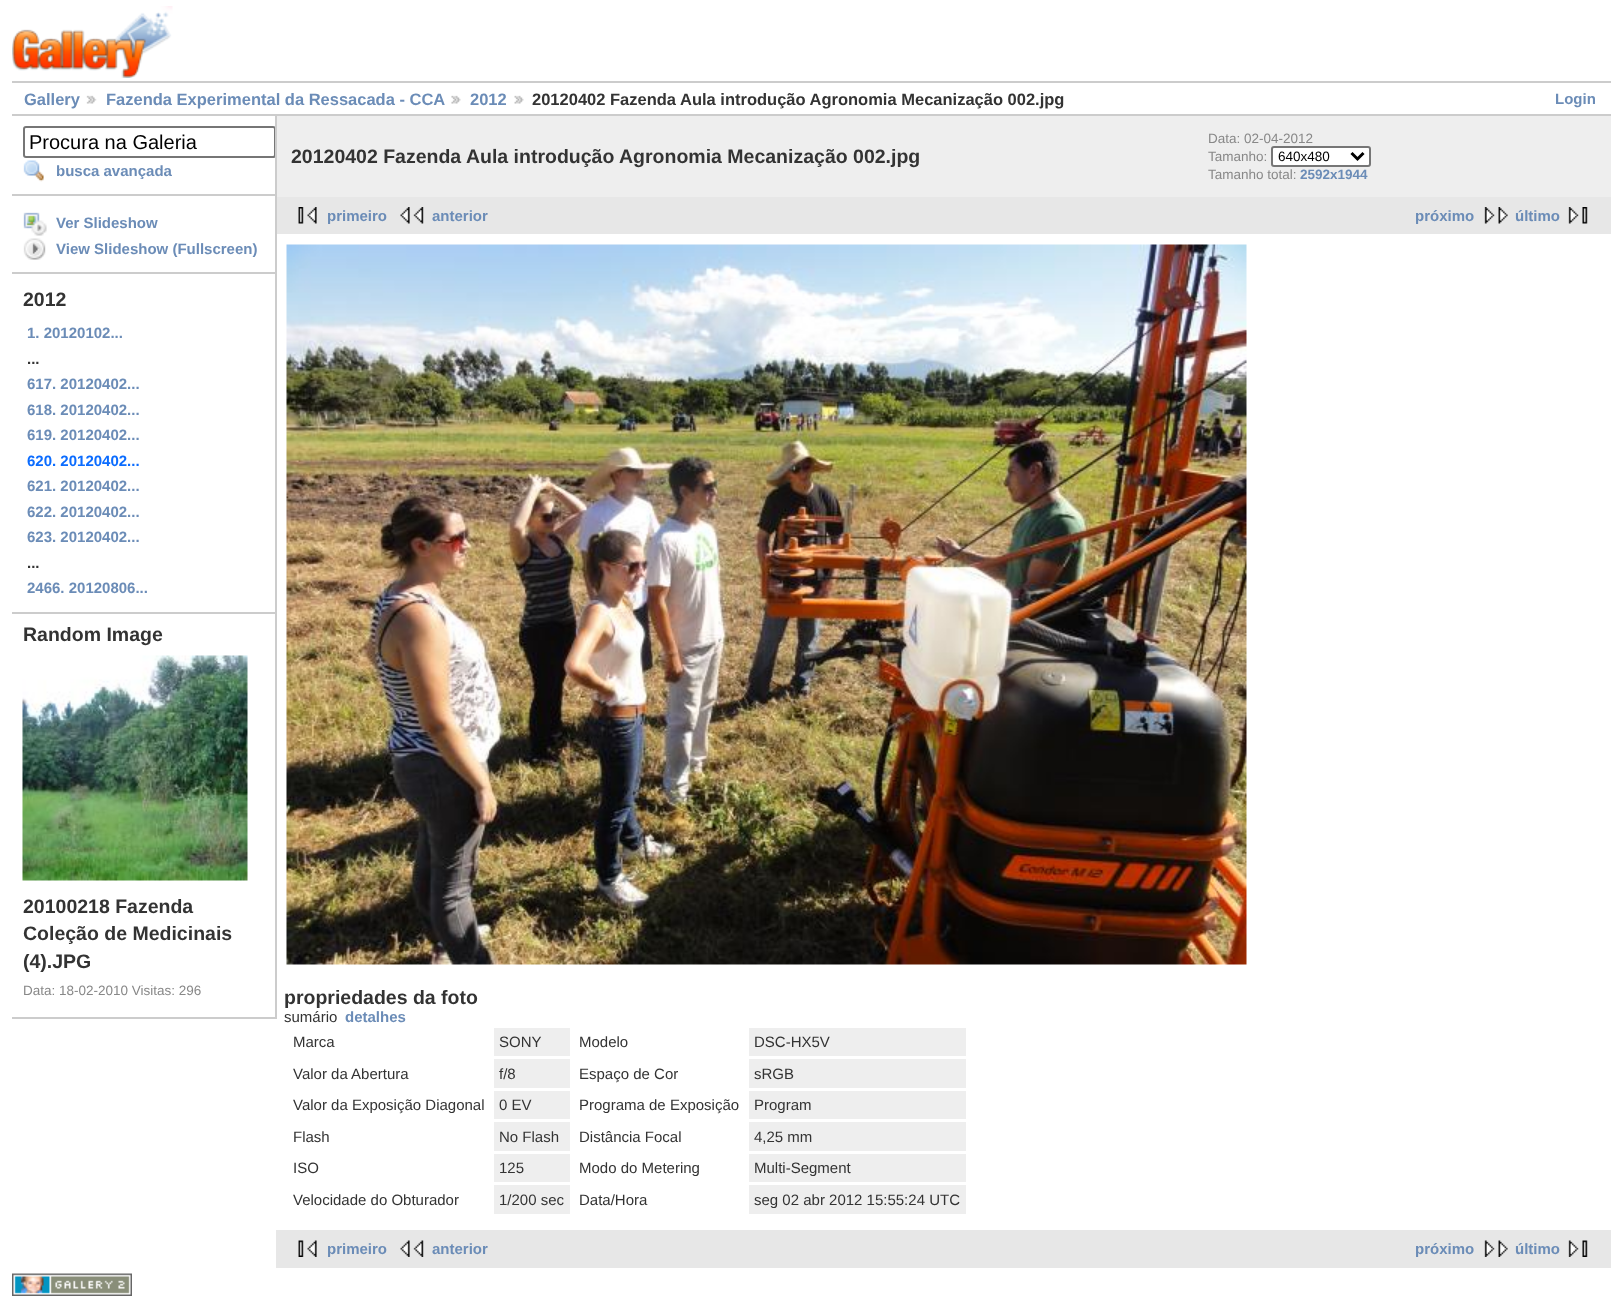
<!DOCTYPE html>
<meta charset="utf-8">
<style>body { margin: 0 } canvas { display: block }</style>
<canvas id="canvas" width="1623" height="1303"></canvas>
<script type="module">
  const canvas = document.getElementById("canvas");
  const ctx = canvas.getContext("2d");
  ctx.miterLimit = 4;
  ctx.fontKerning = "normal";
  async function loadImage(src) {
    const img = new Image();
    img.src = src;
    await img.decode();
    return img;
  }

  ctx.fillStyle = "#ffffff";
  ctx.fillRect(0, 0, 1623, 1303);
  ctx.drawImage(await loadImage("img1.png"), 12, 6, 161, 72);
  ctx.fillStyle = "#cccccc";
  ctx.fillRect(12, 81, 1599, 2);
  ctx.fillRect(12, 114, 1599, 2);
  ctx.font = "bold 16.5px Liberation Sans";
  ctx.fillStyle = "#6b8cb7";
  ctx.fillText("Gallery", 24, 105);
  ctx.drawImage(await loadImage("img2.png"), 86, 95, 11, 9);
  ctx.fillText("Fazenda Experimental da Ressacada - CCA", 106, 105);
  ctx.drawImage(await loadImage("img3.png"), 451, 95, 10, 9);
  ctx.fillText("2012", 470, 105);
  ctx.drawImage(await loadImage("img4.png"), 514, 95, 10, 9);
  ctx.fillStyle = "#333333";
  ctx.fillText("20120402 Fazenda Aula introdução Agronomia Mecanização 002.jpg", 532, 105);
  ctx.font = "bold 15px Liberation Sans";
  ctx.fillStyle = "#6b8cb7";
  ctx.fillText("Login", 1555, 104);
  ctx.fillStyle = "#cccccc";
  ctx.fillRect(275, 116, 2, 903);
  ctx.fillRect(12, 194, 263, 2);
  ctx.save();
  ctx.beginPath();
  ctx.rect(12, 116, 263, 903);
  ctx.clip();
  ctx.beginPath();
  ctx.roundRect(24, 127, 251, 30, 2);
  ctx.strokeStyle = "#767676";
  ctx.lineWidth = 2;
  ctx.stroke();
  ctx.restore();
  ctx.font = "20px Liberation Sans";
  ctx.fillStyle = "#000000";
  ctx.fillText("Procura na Galeria", 29, 149);
  ctx.drawImage(await loadImage("img5.png"), 23, 160, 21, 22);
  ctx.font = "bold 15px Liberation Sans";
  ctx.fillStyle = "#6b8cb7";
  ctx.fillText("busca avançada", 56, 176);
  ctx.fillStyle = "#cccccc";
  ctx.fillRect(12, 272, 263, 2);
  ctx.drawImage(await loadImage("img6.png"), 23, 212, 24, 24);
  ctx.fillStyle = "#6b8cb7";
  ctx.fillText("Ver Slideshow", 56, 228);
  ctx.drawImage(await loadImage("img7.png"), 23, 238, 23, 22);
  ctx.fillText("View Slideshow (Fullscreen)", 56, 254);
  ctx.fillStyle = "#cccccc";
  ctx.fillRect(12, 612, 263, 2);
  ctx.font = "bold 19.5px Liberation Sans";
  ctx.fillStyle = "#333333";
  ctx.fillText("2012", 23, 306);
  ctx.font = "bold 15px Liberation Sans";
  ctx.fillStyle = "#6b8cb7";
  ctx.fillText("1. 20120102...", 27, 338);
  ctx.fillStyle = "#333333";
  ctx.fillText("...", 27, 364);
  ctx.fillStyle = "#6b8cb7";
  ctx.fillText("617. 20120402...", 27, 389);
  ctx.fillText("618. 20120402...", 27, 415);
  ctx.fillText("619. 20120402...", 27, 440);
  ctx.fillStyle = "#0b6cff";
  ctx.fillText("620. 20120402...", 27, 466);
  ctx.fillStyle = "#6b8cb7";
  ctx.fillText("621. 20120402...", 27, 491);
  ctx.fillText("622. 20120402...", 27, 517);
  ctx.fillText("623. 20120402...", 27, 542);
  ctx.fillStyle = "#333333";
  ctx.fillText("...", 27, 568);
  ctx.fillStyle = "#6b8cb7";
  ctx.fillText("2466. 20120806...", 27, 593);
  ctx.fillStyle = "#cccccc";
  ctx.fillRect(12, 1017, 263, 2);
  ctx.font = "bold 19.5px Liberation Sans";
  ctx.fillStyle = "#333333";
  ctx.fillText("Random Image", 23, 641);
  ctx.drawImage(await loadImage("img8.png"), 22, 655, 226, 226);
  ctx.fillText("20100218 Fazenda", 23, 913);
  ctx.fillText("Coleção de Medicinais", 23, 940);
  ctx.fillText("(4).JPG", 23, 968);
  ctx.font = "13.5px Liberation Sans";
  ctx.fillStyle = "#888888";
  ctx.fillText("Data: 18-02-2010 Visitas: 296", 23, 995);
  ctx.fillStyle = "#eeeeee";
  ctx.fillRect(277, 116, 1334, 81);
  ctx.font = "bold 19.5px Liberation Sans";
  ctx.fillStyle = "#333333";
  ctx.fillText("20120402 Fazenda Aula introdução Agronomia Mecanização 002.jpg", 291, 163);
  ctx.font = "13.5px Liberation Sans";
  ctx.fillStyle = "#888888";
  ctx.fillText("Data: 02-04-2012", 1208, 143);
  ctx.fillText("Tamanho:", 1208, 161);
  ctx.fillStyle = "#ffffff";
  ctx.beginPath();
  ctx.roundRect(1272, 147, 98, 19, 2);
  ctx.fill();
  ctx.strokeStyle = "#767676";
  ctx.lineWidth = 2;
  ctx.stroke();
  ctx.beginPath();
  ctx.moveTo(1351.5, 153);
  ctx.lineTo(1357.5, 159);
  ctx.lineTo(1363.5, 153);
  ctx.strokeStyle = "#000000";
  ctx.lineWidth = 3;
  ctx.stroke();
  ctx.fillStyle = "#000000";
  ctx.fillText("640x480", 1278, 161);
  ctx.fillStyle = "#888888";
  ctx.fillText("Tamanho total:", 1208, 179);
  ctx.font = "bold 13.5px Liberation Sans";
  ctx.fillStyle = "#6b8cb7";
  ctx.fillText("2592x1944", 1300, 179);
  ctx.fillStyle = "#e7e7e7";
  ctx.fillRect(277, 197, 1334, 37);
  ctx.drawImage(await loadImage("img9.png"), 298, 207, 19, 17);
  ctx.font = "bold 15px Liberation Sans";
  ctx.fillStyle = "#6b8cb7";
  ctx.fillText("primeiro", 327, 221);
  ctx.drawImage(await loadImage("img10.png"), 400, 207, 24, 17);
  ctx.fillText("anterior", 432, 221);
  ctx.fillText("próximo", 1415, 221);
  ctx.drawImage(await loadImage("img11.png"), 1484, 207, 24, 17);
  ctx.fillText("último", 1515, 221);
  ctx.drawImage(await loadImage("img12.png"), 1568, 207, 20, 17);
  ctx.drawImage(await loadImage("img13.png"), 286, 244, 961, 721);
  ctx.font = "bold 19.5px Liberation Sans";
  ctx.fillStyle = "#333333";
  ctx.fillText("propriedades da foto", 284, 1004);
  ctx.font = "15px Liberation Sans";
  ctx.fillText("sumário", 284, 1022);
  ctx.font = "bold 15px Liberation Sans";
  ctx.fillStyle = "#6b8cb7";
  ctx.fillText("detalhes", 345, 1022);
  ctx.font = "15px Liberation Sans";
  ctx.fillStyle = "#333333";
  ctx.fillText("Marca", 293, 1047);
  ctx.fillStyle = "#eeeeee";
  ctx.fillRect(494, 1028, 76, 28);
  ctx.fillStyle = "#333333";
  ctx.fillText("SONY", 499, 1047);
  ctx.fillText("Modelo", 579, 1047);
  ctx.fillStyle = "#eeeeee";
  ctx.fillRect(749, 1028, 217, 28);
  ctx.fillStyle = "#333333";
  ctx.fillText("DSC-HX5V", 754, 1047);
  ctx.fillText("Valor da Abertura", 293, 1079);
  ctx.fillStyle = "#eeeeee";
  ctx.fillRect(494, 1059, 76, 29);
  ctx.fillStyle = "#333333";
  ctx.fillText("f/8", 499, 1079);
  ctx.fillText("Espaço de Cor", 579, 1079);
  ctx.fillStyle = "#eeeeee";
  ctx.fillRect(749, 1059, 217, 29);
  ctx.fillStyle = "#333333";
  ctx.fillText("sRGB", 754, 1079);
  ctx.fillText("Valor da Exposição Diagonal", 293, 1110);
  ctx.fillStyle = "#eeeeee";
  ctx.fillRect(494, 1091, 76, 28);
  ctx.fillStyle = "#333333";
  ctx.fillText("0 EV", 499, 1110);
  ctx.fillText("Programa de Exposição", 579, 1110);
  ctx.fillStyle = "#eeeeee";
  ctx.fillRect(749, 1091, 217, 28);
  ctx.fillStyle = "#333333";
  ctx.fillText("Program", 754, 1110);
  ctx.fillText("Flash", 293, 1142);
  ctx.fillStyle = "#eeeeee";
  ctx.fillRect(494, 1122, 76, 29);
  ctx.fillStyle = "#333333";
  ctx.fillText("No Flash", 499, 1142);
  ctx.fillText("Distância Focal", 579, 1142);
  ctx.fillStyle = "#eeeeee";
  ctx.fillRect(749, 1122, 217, 29);
  ctx.fillStyle = "#333333";
  ctx.fillText("4,25 mm", 754, 1142);
  ctx.fillText("ISO", 293, 1173);
  ctx.fillStyle = "#eeeeee";
  ctx.fillRect(494, 1154, 76, 28);
  ctx.fillStyle = "#333333";
  ctx.fillText("125", 499, 1173);
  ctx.fillText("Modo do Metering", 579, 1173);
  ctx.fillStyle = "#eeeeee";
  ctx.fillRect(749, 1154, 217, 28);
  ctx.fillStyle = "#333333";
  ctx.fillText("Multi-Segment", 754, 1173);
  ctx.fillText("Velocidade do Obturador", 293, 1205);
  ctx.fillStyle = "#eeeeee";
  ctx.fillRect(494, 1185, 76, 29);
  ctx.fillStyle = "#333333";
  ctx.fillText("1/200 sec", 499, 1205);
  ctx.fillText("Data/Hora", 579, 1205);
  ctx.fillStyle = "#eeeeee";
  ctx.fillRect(749, 1185, 217, 29);
  ctx.fillStyle = "#333333";
  ctx.fillText("seg 02 abr 2012 15:55:24 UTC", 754, 1205);
  ctx.fillStyle = "#e7e7e7";
  ctx.fillRect(276, 1230, 1335, 38);
  ctx.drawImage(await loadImage("img14.png"), 298, 1240, 19, 17);
  ctx.font = "bold 15px Liberation Sans";
  ctx.fillStyle = "#6b8cb7";
  ctx.fillText("primeiro", 327, 1254);
  ctx.drawImage(await loadImage("img15.png"), 400, 1240, 24, 17);
  ctx.fillText("anterior", 432, 1254);
  ctx.fillText("próximo", 1415, 1254);
  ctx.drawImage(await loadImage("img16.png"), 1484, 1240, 24, 17);
  ctx.fillText("último", 1515, 1254);
  ctx.drawImage(await loadImage("img17.png"), 1568, 1240, 20, 17);
  ctx.drawImage(await loadImage("img18.png"), 12, 1273, 120, 23);
</script>
